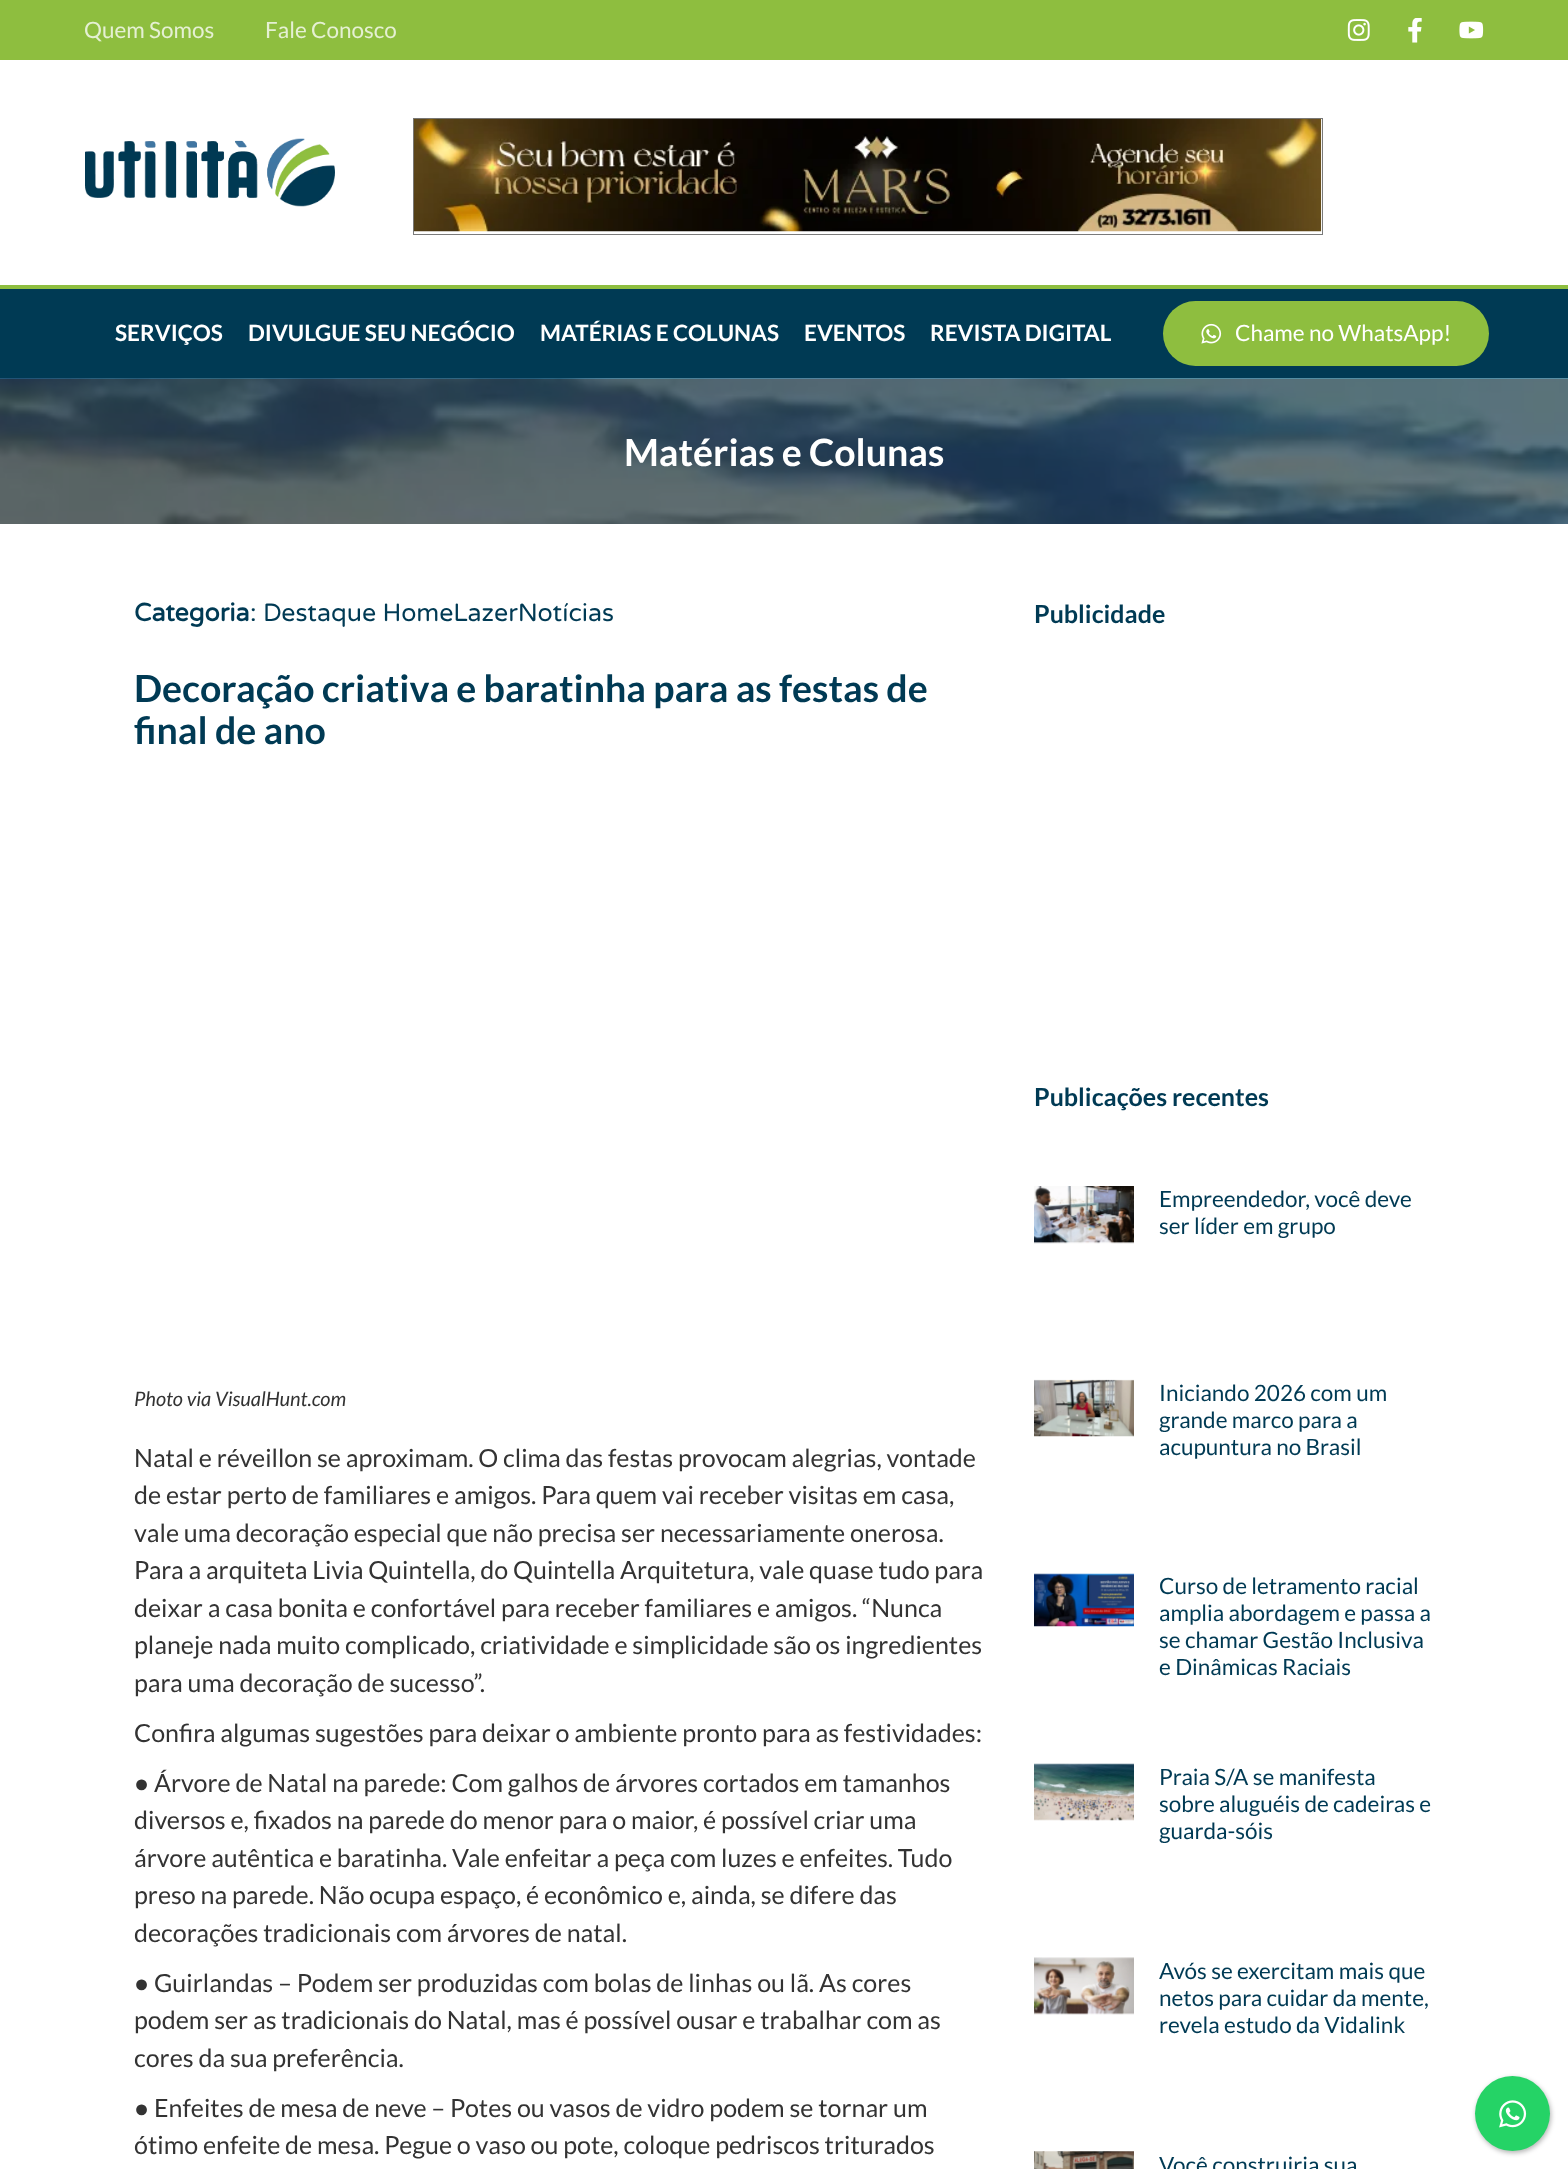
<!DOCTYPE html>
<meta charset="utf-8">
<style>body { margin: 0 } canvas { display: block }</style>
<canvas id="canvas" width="1568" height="2169"></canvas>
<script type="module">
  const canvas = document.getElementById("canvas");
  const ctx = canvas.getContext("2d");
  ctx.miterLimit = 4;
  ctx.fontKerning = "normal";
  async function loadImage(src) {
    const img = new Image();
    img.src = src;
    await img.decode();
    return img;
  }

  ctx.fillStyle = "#ffffff";
  ctx.fillRect(0, 0, 1568, 2169);
  ctx.fillStyle = "#8ebe3f";
  ctx.fillRect(0, 0, 1568, 60);
  ctx.font = "22.5px Lato";
  ctx.fillStyle = "#e5f0d3";
  ctx.fillText("Quem Somos", 84, 38);
  ctx.fillText("Fale Conosco", 265, 38);
  ctx.drawImage(await loadImage("img1.png"), 1347, 19, 23, 22);
  ctx.drawImage(await loadImage("img2.png"), 1408, 18, 14, 25);
  ctx.drawImage(await loadImage("img3.png"), 1459, 21, 25, 18);
  ctx.drawImage(await loadImage("img4.png"), 85, 138, 250, 69);
  ctx.strokeStyle = "#7a7a7a";
  ctx.strokeRect(413.5, 118.5, 909, 116);
  ctx.drawImage(await loadImage("img5.png"), 413, 118, 909, 114);
  ctx.fillStyle = "#003a54";
  ctx.fillRect(0, 289, 1568, 90);
  ctx.fillStyle = "#8ebe3f";
  ctx.fillRect(0, 285, 1568, 4);
  ctx.font = "bold 22.5px Lato";
  ctx.fillStyle = "#ffffff";
  ctx.fillText("SERVIÇOS", 115, 341);
  ctx.fillText("DIVULGUE SEU NEGÓCIO", 248, 341);
  ctx.fillText("MATÉRIAS E COLUNAS", 540, 341);
  ctx.fillText("EVENTOS", 804, 341);
  ctx.fillText("REVISTA DIGITAL", 930, 341);
  ctx.fillStyle = "#8ebe3f";
  ctx.beginPath();
  ctx.roundRect(1163, 301, 326, 65, 32.5);
  ctx.fill();
  ctx.drawImage(await loadImage("img6.png"), 1201, 323, 21, 21);
  ctx.font = "22.5px Lato";
  ctx.fillStyle = "#ffffff";
  ctx.fillText("Chame no WhatsApp!", 1235, 341);
  ctx.fillStyle = "#000000";
  ctx.fillRect(0, 379, 1568, 145);
  ctx.drawImage(await loadImage("img7.png"), 0, 378, 1568, 146);
  ctx.font = "bold 37.5px Lato";
  ctx.fillStyle = "#ffffff";
  ctx.fillText("Matérias e Colunas", 624, 466);
  ctx.font = "bold 25px Varela Round";
  ctx.fillStyle = "#003a54";
  ctx.fillText("Categoria", 134, 621);
  ctx.font = "25px Varela Round";
  ctx.fillText(": Destaque HomeLazerNotícias", 250, 621);
  ctx.font = "bold 37.5px Lato";
  ctx.fillText("Decoração criativa e baratinha para as festas de", 134, 702);
  ctx.fillText("final de ano", 134, 744);
  ctx.font = "italic 20px Lato";
  ctx.fillStyle = "#333333";
  ctx.fillText("Photo via VisualHunt.com", 134, 1406);
  ctx.font = "25px Lato";
  ctx.fillText("Natal e réveillon se aproximam. O clima das festas provocam alegrias, vontade", 134, 1467);
  ctx.fillText("de estar perto de familiares e amigos. Para quem vai receber visitas em casa,", 134, 1504);
  ctx.fillText("vale uma decoração especial que não precisa ser necessariamente onerosa.", 134, 1542);
  ctx.fillText("Para a arquiteta Livia Quintella, do Quintella Arquitetura, vale quase tudo para", 134, 1579);
  ctx.fillText("deixar a casa bonita e confortável para receber familiares e amigos. “Nunca", 134, 1617);
  ctx.fillText("planeje nada muito complicado, criatividade e simplicidade são os ingredientes", 134, 1654);
  ctx.fillText("para uma decoração de sucesso”.", 134, 1692);
  ctx.fillText("Confira algumas sugestões para deixar o ambiente pronto para as festividades:", 134, 1742);
  ctx.font = "25px Liberation Sans";
  ctx.fillText("●", 134, 1792);
  ctx.font = "25px Lato";
  ctx.fillText("Árvore de Natal na parede: Com galhos de árvores cortados em tamanhos", 154, 1792);
  ctx.fillText("diversos e, fixados na parede do menor para o maior, é possível criar uma", 134, 1829);
  ctx.fillText("árvore autêntica e baratinha. Vale enfeitar a peça com luzes e enfeites. Tudo", 134, 1867);
  ctx.fillText("preso na parede. Não ocupa espaço, é econômico e, ainda, se difere das", 134, 1904);
  ctx.fillText("decorações tradicionais com árvores de natal.", 134, 1942);
  ctx.font = "25px Liberation Sans";
  ctx.fillText("●", 134, 1992);
  ctx.font = "25px Lato";
  ctx.fillText("Guirlandas – Podem ser produzidas com bolas de linhas ou lã. As cores", 154, 1992);
  ctx.fillText("podem ser as tradicionais do Natal, mas é possível ousar e trabalhar com as", 134, 2029);
  ctx.fillText("cores da sua preferência.", 134, 2067);
  ctx.font = "25px Liberation Sans";
  ctx.fillText("●", 134, 2117);
  ctx.font = "25px Lato";
  ctx.fillText("Enfeites de mesa de neve – Potes ou vasos de vidro podem se tornar um", 154, 2117);
  ctx.fillText("ótimo enfeite de mesa. Pegue o vaso ou pote, coloque pedriscos triturados", 134, 2154);
  ctx.font = "bold 25px Lato";
  ctx.fillStyle = "#003a54";
  ctx.fillText("Publicidade", 1034, 623);
  ctx.fillText("Publicações recentes", 1034, 1106);
  ctx.drawImage(await loadImage("img8.png"), 1034, 1186, 100, 58);
  ctx.font = "22.5px Lato";
  ctx.fillText("Empreendedor, você deve", 1159, 1207);
  ctx.fillText("ser líder em grupo", 1159, 1234);
  ctx.drawImage(await loadImage("img9.png"), 1034, 1379, 100, 58);
  ctx.fillText("Iniciando 2026 com um", 1159, 1401);
  ctx.fillText("grande marco para a", 1159, 1428);
  ctx.fillText("acupuntura no Brasil", 1159, 1455);
  ctx.drawImage(await loadImage("img10.png"), 1034, 1573, 100, 54);
  ctx.fillText("Curso de letramento racial", 1159, 1594);
  ctx.fillText("amplia abordagem e passa a", 1159, 1621);
  ctx.fillText("se chamar Gestão Inclusiva", 1159, 1648);
  ctx.fillText("e Dinâmicas Raciais", 1159, 1675);
  ctx.drawImage(await loadImage("img11.png"), 1034, 1763, 100, 58);
  ctx.fillText("Praia S/A se manifesta", 1159, 1785);
  ctx.fillText("sobre aluguéis de cadeiras e", 1159, 1812);
  ctx.fillText("guarda-sóis", 1159, 1839);
  ctx.drawImage(await loadImage("img12.png"), 1034, 1957, 100, 58);
  ctx.fillText("Avós se exercitam mais que", 1159, 1979);
  ctx.fillText("netos para cuidar da mente,", 1159, 2006);
  ctx.fillText("revela estudo da Vidalink", 1159, 2033);
  ctx.drawImage(await loadImage("img13.png"), 1034, 2151, 100, 18);
  ctx.fillText("Você construiria sua", 1159, 2173);
  ctx.fillStyle = "rgba(0, 0, 0, 0.3)";
  ctx.filter = "blur(2.5px)";
  ctx.beginPath();
  ctx.roundRect(1476, 2078, 75, 75, 37.5);
  ctx.fill();
  ctx.filter = "none";
  ctx.fillStyle = "#25d366";
  ctx.beginPath();
  ctx.arc(1512.5, 2113.5, 37.5, 0, Math.PI * 2);
  ctx.fill();
  ctx.drawImage(await loadImage("img14.png"), 1499, 2100, 28, 28);
</script>
